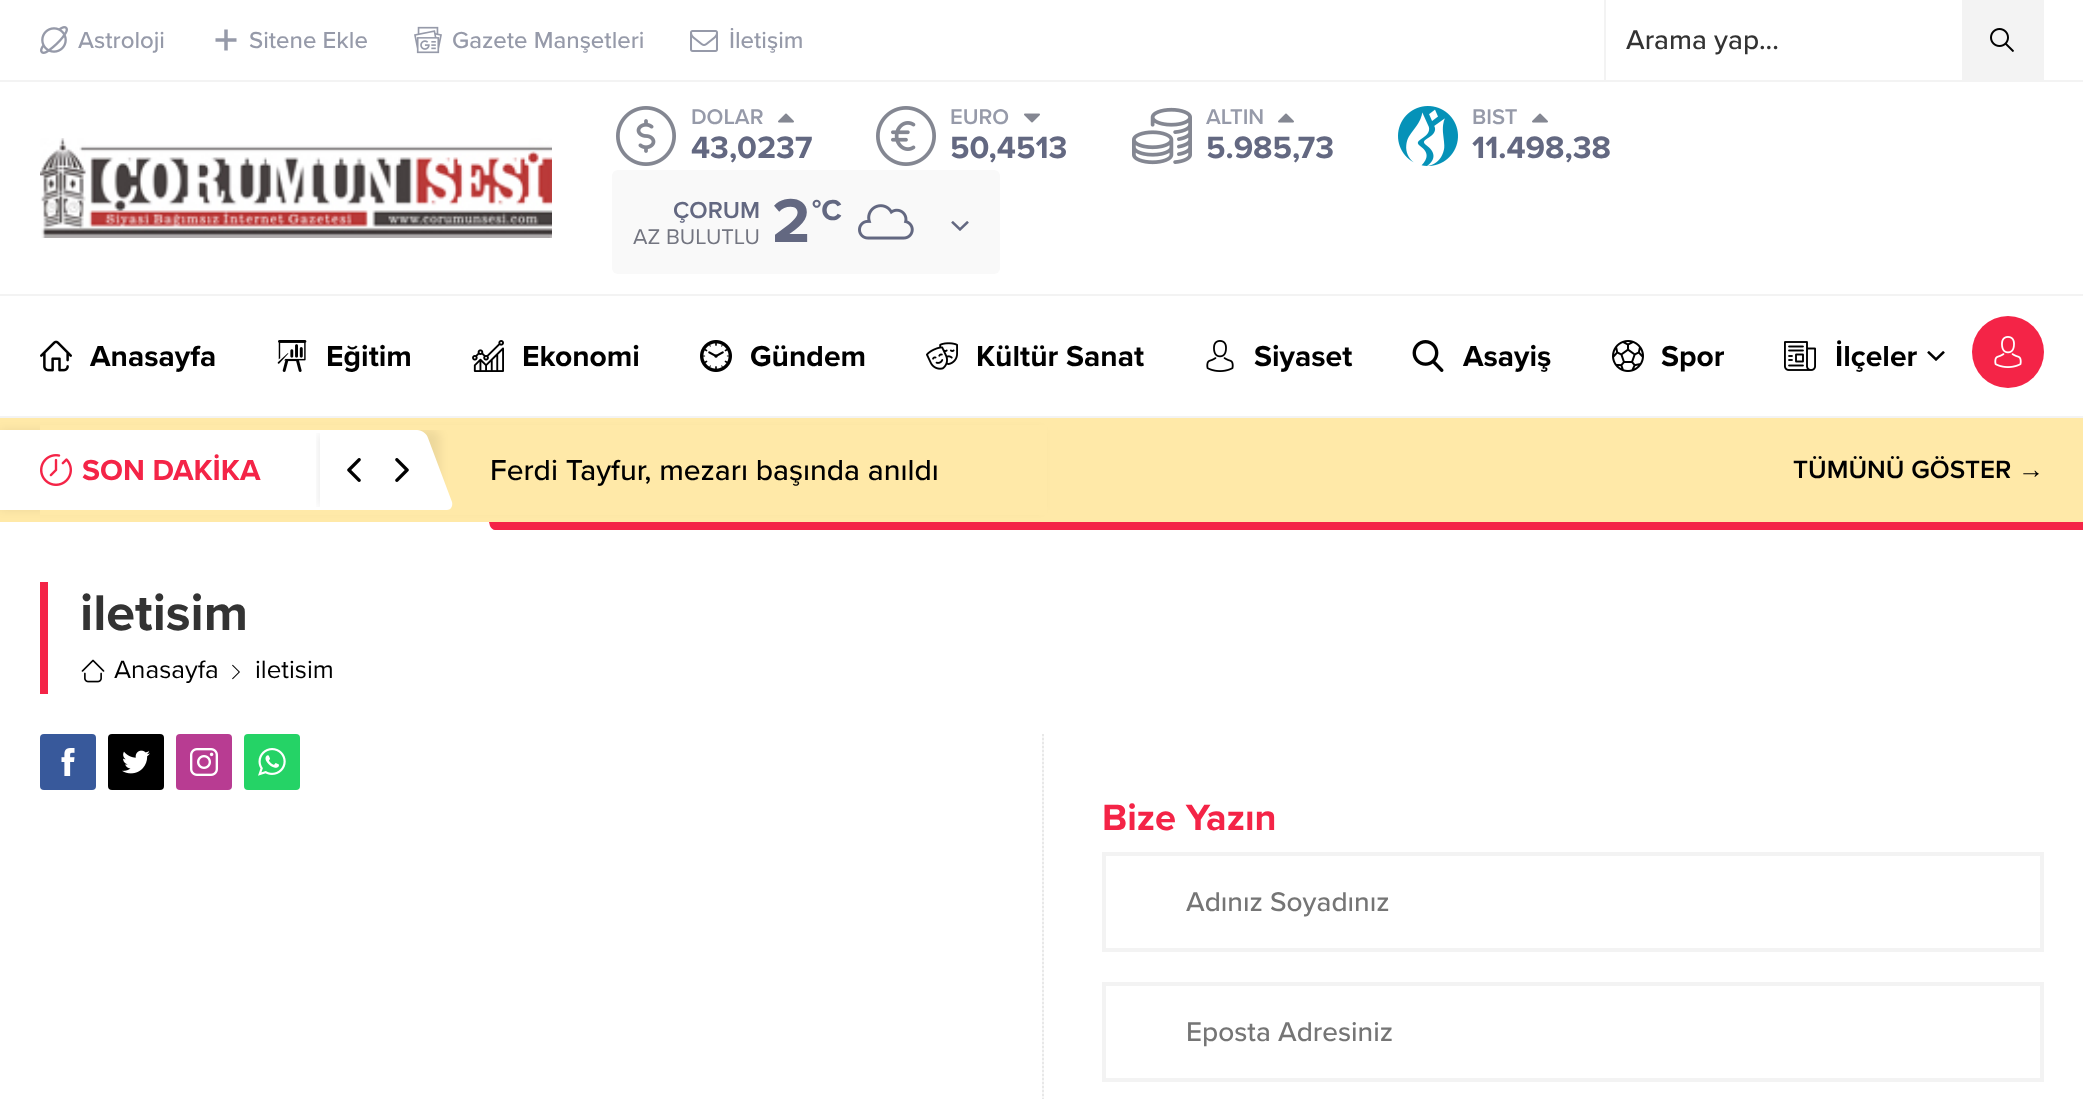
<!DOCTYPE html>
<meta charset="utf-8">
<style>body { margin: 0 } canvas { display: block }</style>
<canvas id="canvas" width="2083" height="1099"></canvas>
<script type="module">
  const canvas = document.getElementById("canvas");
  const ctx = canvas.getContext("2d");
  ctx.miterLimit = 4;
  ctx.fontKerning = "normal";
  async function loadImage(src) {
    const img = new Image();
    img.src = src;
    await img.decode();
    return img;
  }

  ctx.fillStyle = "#ffffff";
  ctx.fillRect(0, 0, 2083, 1099);
  ctx.fillStyle = "#f3f3f3";
  ctx.fillRect(0, 80, 2083, 2);
  ctx.drawImage(await loadImage("img1.png"), 40, 26, 28, 28);
  ctx.font = "500 24px Proxima Nova";
  ctx.fillStyle = "#969aa9";
  ctx.fillText("Astroloji", 78, 48);
  ctx.drawImage(await loadImage("img2.png"), 215, 29, 22, 22);
  ctx.fillText("Sitene Ekle", 249, 48);
  ctx.drawImage(await loadImage("img3.png"), 414, 26, 28, 28);
  ctx.fillText("Gazete Manşetleri", 452, 48);
  ctx.drawImage(await loadImage("img4.png"), 690, 30, 28, 22);
  ctx.fillText("İletişim", 729, 48);
  ctx.fillStyle = "#f3f3f3";
  ctx.fillRect(1962, 0, 82, 80);
  ctx.fillRect(1604, 0, 2, 80);
  ctx.font = "500 28px Proxima Nova";
  ctx.fillStyle = "#333333";
  ctx.fillText("Arama yap...", 1626, 49);
  ctx.drawImage(await loadImage("img5.png"), 1990, 28, 24, 24);
  ctx.fillStyle = "#f3f3f3";
  ctx.fillRect(0, 294, 2083, 2);
  ctx.drawImage(await loadImage("img6.png"), 40, 138, 512, 100);
  ctx.drawImage(await loadImage("img7.png"), 616, 106, 60, 60);
  ctx.font = "600 22px Proxima Nova";
  ctx.fillStyle = "#969aa9";
  ctx.fillText("DOLAR", 691, 124);
  ctx.drawImage(await loadImage("img8.png"), 778, 113, 16, 10);
  ctx.font = "bold 32px Proxima Nova";
  ctx.fillStyle = "#636881";
  ctx.fillText("43,0237", 691, 158);
  ctx.drawImage(await loadImage("img9.png"), 876, 106, 60, 60);
  ctx.font = "600 22px Proxima Nova";
  ctx.fillStyle = "#969aa9";
  ctx.fillText("EURO", 950, 124);
  ctx.drawImage(await loadImage("img10.png"), 1024, 113, 16, 10);
  ctx.font = "bold 32px Proxima Nova";
  ctx.fillStyle = "#636881";
  ctx.fillText("50,4513", 950, 158);
  ctx.drawImage(await loadImage("img11.png"), 1132, 107, 60, 58);
  ctx.font = "600 22px Proxima Nova";
  ctx.fillStyle = "#969aa9";
  ctx.fillText("ALTIN", 1206, 124);
  ctx.drawImage(await loadImage("img8.png"), 1278, 113, 16, 10);
  ctx.font = "bold 32px Proxima Nova";
  ctx.fillStyle = "#636881";
  ctx.fillText("5.985,73", 1206, 158);
  ctx.drawImage(await loadImage("img12.png"), 1398, 106, 60, 60);
  ctx.font = "600 22px Proxima Nova";
  ctx.fillStyle = "#969aa9";
  ctx.fillText("BIST", 1472, 124);
  ctx.drawImage(await loadImage("img8.png"), 1532, 113, 16, 10);
  ctx.font = "bold 32px Proxima Nova";
  ctx.fillStyle = "#636881";
  ctx.fillText("11.498,38", 1472, 158);
  ctx.fillStyle = "#f9f9f9";
  ctx.beginPath();
  ctx.roundRect(612, 170, 388, 104, 6);
  ctx.fill();
  ctx.font = "600 24px Proxima Nova";
  ctx.fillStyle = "#636881";
  ctx.fillText("ÇORUM", 673, 218);
  ctx.font = "22px Proxima Nova";
  ctx.fillStyle = "#737580";
  ctx.fillText("AZ BULUTLU", 633, 244);
  ctx.letterSpacing = "-4px";
  ctx.font = "bold 64px Proxima Nova";
  ctx.fillStyle = "#636881";
  ctx.fillText("2", 772, 242);
  ctx.letterSpacing = "0px";
  ctx.font = "bold 30px Proxima Nova";
  ctx.fillText("°C", 812, 220);
  ctx.drawImage(await loadImage("img13.png"), 858, 204, 56, 36);
  ctx.drawImage(await loadImage("img14.png"), 951, 221, 18, 10);
  ctx.fillStyle = "#f3f3f3";
  ctx.fillRect(0, 416, 2083, 2);
  ctx.drawImage(await loadImage("img15.png"), 40, 340, 32, 32);
  ctx.fillStyle = "#000000";
  ctx.fillText("Anasayfa", 90, 366);
  ctx.drawImage(await loadImage("img16.png"), 277, 340, 30, 32);
  ctx.fillText("Eğitim", 326, 366);
  ctx.drawImage(await loadImage("img17.png"), 472, 340, 32, 32);
  ctx.fillText("Ekonomi", 522, 366);
  ctx.drawImage(await loadImage("img18.png"), 700, 340, 32, 32);
  ctx.fillText("Gündem", 750, 366);
  ctx.drawImage(await loadImage("img19.png"), 926, 342, 32, 28);
  ctx.fillText("Kültür Sanat", 976, 366);
  ctx.drawImage(await loadImage("img20.png"), 1206, 340, 28, 32);
  ctx.fillText("Siyaset", 1254, 366);
  ctx.drawImage(await loadImage("img21.png"), 1412, 340, 32, 32);
  ctx.fillText("Asayiş", 1463, 366);
  ctx.drawImage(await loadImage("img22.png"), 1612, 340, 32, 32);
  ctx.save();
  ctx.beginPath();
  ctx.rect(1612, 296, 112, 120);
  ctx.clip();
  ctx.fillText("Spor", 1661, 366);
  ctx.restore();
  ctx.drawImage(await loadImage("img23.png"), 1784, 341, 32, 30);
  ctx.fillText("İlçeler", 1835, 366);
  ctx.drawImage(await loadImage("img24.png"), 1927, 351, 18, 10);
  ctx.fillStyle = "#f42447";
  ctx.beginPath();
  ctx.arc(2008, 352, 36, 0, Math.PI * 2);
  ctx.fill();
  ctx.drawImage(await loadImage("img25.png"), 1994, 336, 28, 32);
  ctx.fillStyle = "#ffe9a8";
  ctx.fillRect(0, 418, 2083, 104);
  ctx.fillStyle = "rgba(0, 0, 0, 0.07)";
  ctx.filter = "blur(5px)";
  ctx.beginPath();
  ctx.rect(0, 430, 1042, 80);
  ctx.fill();
  ctx.filter = "none";
  ctx.fillStyle = "#ffe9a8";
  ctx.fillRect(40, 425, 1007, 90);
  ctx.save();
  ctx.beginPath();
  ctx.rect(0, 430, 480, 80);
  ctx.clip();
  ctx.fillStyle = "rgba(0, 0, 0, 0.07)";
  ctx.filter = "blur(5px)";
  ctx.beginPath();
  ctx.roundRect(-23, 430, 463, 80, 8);
  ctx.fill();
  ctx.filter = "none";
  ctx.restore();
  ctx.fillStyle = "#ffffff";
  ctx.beginPath();
  ctx.moveTo(-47, 430);
  ctx.lineTo(417, 430);
  ctx.bezierCurveTo(422, 430, 427, 434, 428, 438);
  ctx.lineTo(452, 502);
  ctx.bezierCurveTo(453, 506, 451, 510, 447, 510);
  ctx.lineTo(-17, 510);
  ctx.bezierCurveTo(-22, 510, -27, 506, -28, 502);
  ctx.lineTo(-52, 438);
  ctx.bezierCurveTo(-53, 434, -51, 430, -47, 430);
  ctx.closePath();
  ctx.fill();
  ctx.drawImage(await loadImage("img26.png"), 40, 454, 32, 32);
  ctx.fillStyle = "#f42447";
  ctx.fillText("SON DAKİKA", 82, 480);
  ctx.save();
  ctx.beginPath();
  ctx.rect(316, 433, 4, 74);
  ctx.clip();
  ctx.fillStyle = "rgba(0, 0, 0, 0.1)";
  ctx.filter = "blur(5px)";
  ctx.beginPath();
  ctx.rect(320, 434, 100, 72);
  ctx.fill();
  ctx.filter = "none";
  ctx.restore();
  ctx.drawImage(await loadImage("img27.png"), 347, 458, 14, 24);
  ctx.drawImage(await loadImage("img28.png"), 395, 458, 14, 24);
  ctx.font = "500 30px Proxima Nova";
  ctx.fillStyle = "#000000";
  ctx.fillText("Ferdi Tayfur, mezarı başında anıldı", 490, 480);
  ctx.fillStyle = "#f42447";
  ctx.beginPath();
  ctx.moveTo(489, 522);
  ctx.lineTo(1782, 522);
  ctx.lineTo(1785, 530);
  ctx.lineTo(495, 530);
  ctx.bezierCurveTo(493, 530, 491, 528, 490, 526);
  ctx.closePath();
  ctx.fill();
  ctx.font = "600 26px Proxima Nova";
  ctx.fillStyle = "#000000";
  ctx.fillText("TÜMÜNÜ GÖSTER", 1793, 478);
  ctx.font = "bold 26px Liberation Sans";
  ctx.fillText("→", 2018, 478);
  ctx.fillStyle = "#f42447";
  ctx.fillRect(1782, 522, 301, 8);
  ctx.fillRect(40, 582, 8, 112);
  ctx.font = "bold 52px Proxima Nova";
  ctx.fillStyle = "#333333";
  ctx.fillText("iletisim", 80, 630);
  ctx.drawImage(await loadImage("img29.png"), 81, 659, 24, 24);
  ctx.font = "26px Proxima Nova";
  ctx.fillStyle = "#000000";
  ctx.fillText("Anasayfa", 114, 678);
  ctx.drawImage(await loadImage("img30.png"), 232, 664, 8, 16);
  ctx.fillText("iletisim", 255, 678);
  ctx.drawImage(await loadImage("img31.png"), 1042, 734, 2, 365);
  ctx.fillStyle = "#38599b";
  ctx.beginPath();
  ctx.roundRect(40, 734, 56, 56, 4);
  ctx.fill();
  ctx.drawImage(await loadImage("img32.png"), 61, 748, 14, 28);
  ctx.fillStyle = "#000000";
  ctx.beginPath();
  ctx.roundRect(108, 734, 56, 56, 4);
  ctx.fill();
  ctx.drawImage(await loadImage("img33.png"), 122, 750, 28, 24);
  ctx.fillStyle = "#b83c92";
  ctx.beginPath();
  ctx.roundRect(176, 734, 56, 56, 4);
  ctx.fill();
  ctx.drawImage(await loadImage("img34.png"), 190, 748, 28, 28);
  ctx.fillStyle = "#25d366";
  ctx.beginPath();
  ctx.roundRect(244, 734, 56, 56, 4);
  ctx.fill();
  ctx.drawImage(await loadImage("img35.png"), 258, 748, 28, 28);
  ctx.font = "bold 38px Proxima Nova";
  ctx.fillStyle = "#f42447";
  ctx.fillText("Bize Yazın", 1102, 830);
  ctx.strokeStyle = "#f3f3f3";
  ctx.lineWidth = 4;
  ctx.strokeRect(1104, 854, 938, 96);
  ctx.font = "500 28px Proxima Nova";
  ctx.fillStyle = "#757575";
  ctx.fillText("Adınız Soyadınız", 1186, 911);
  ctx.strokeRect(1104, 984, 938, 96);
  ctx.fillText("Eposta Adresiniz", 1186, 1041);
</script>
